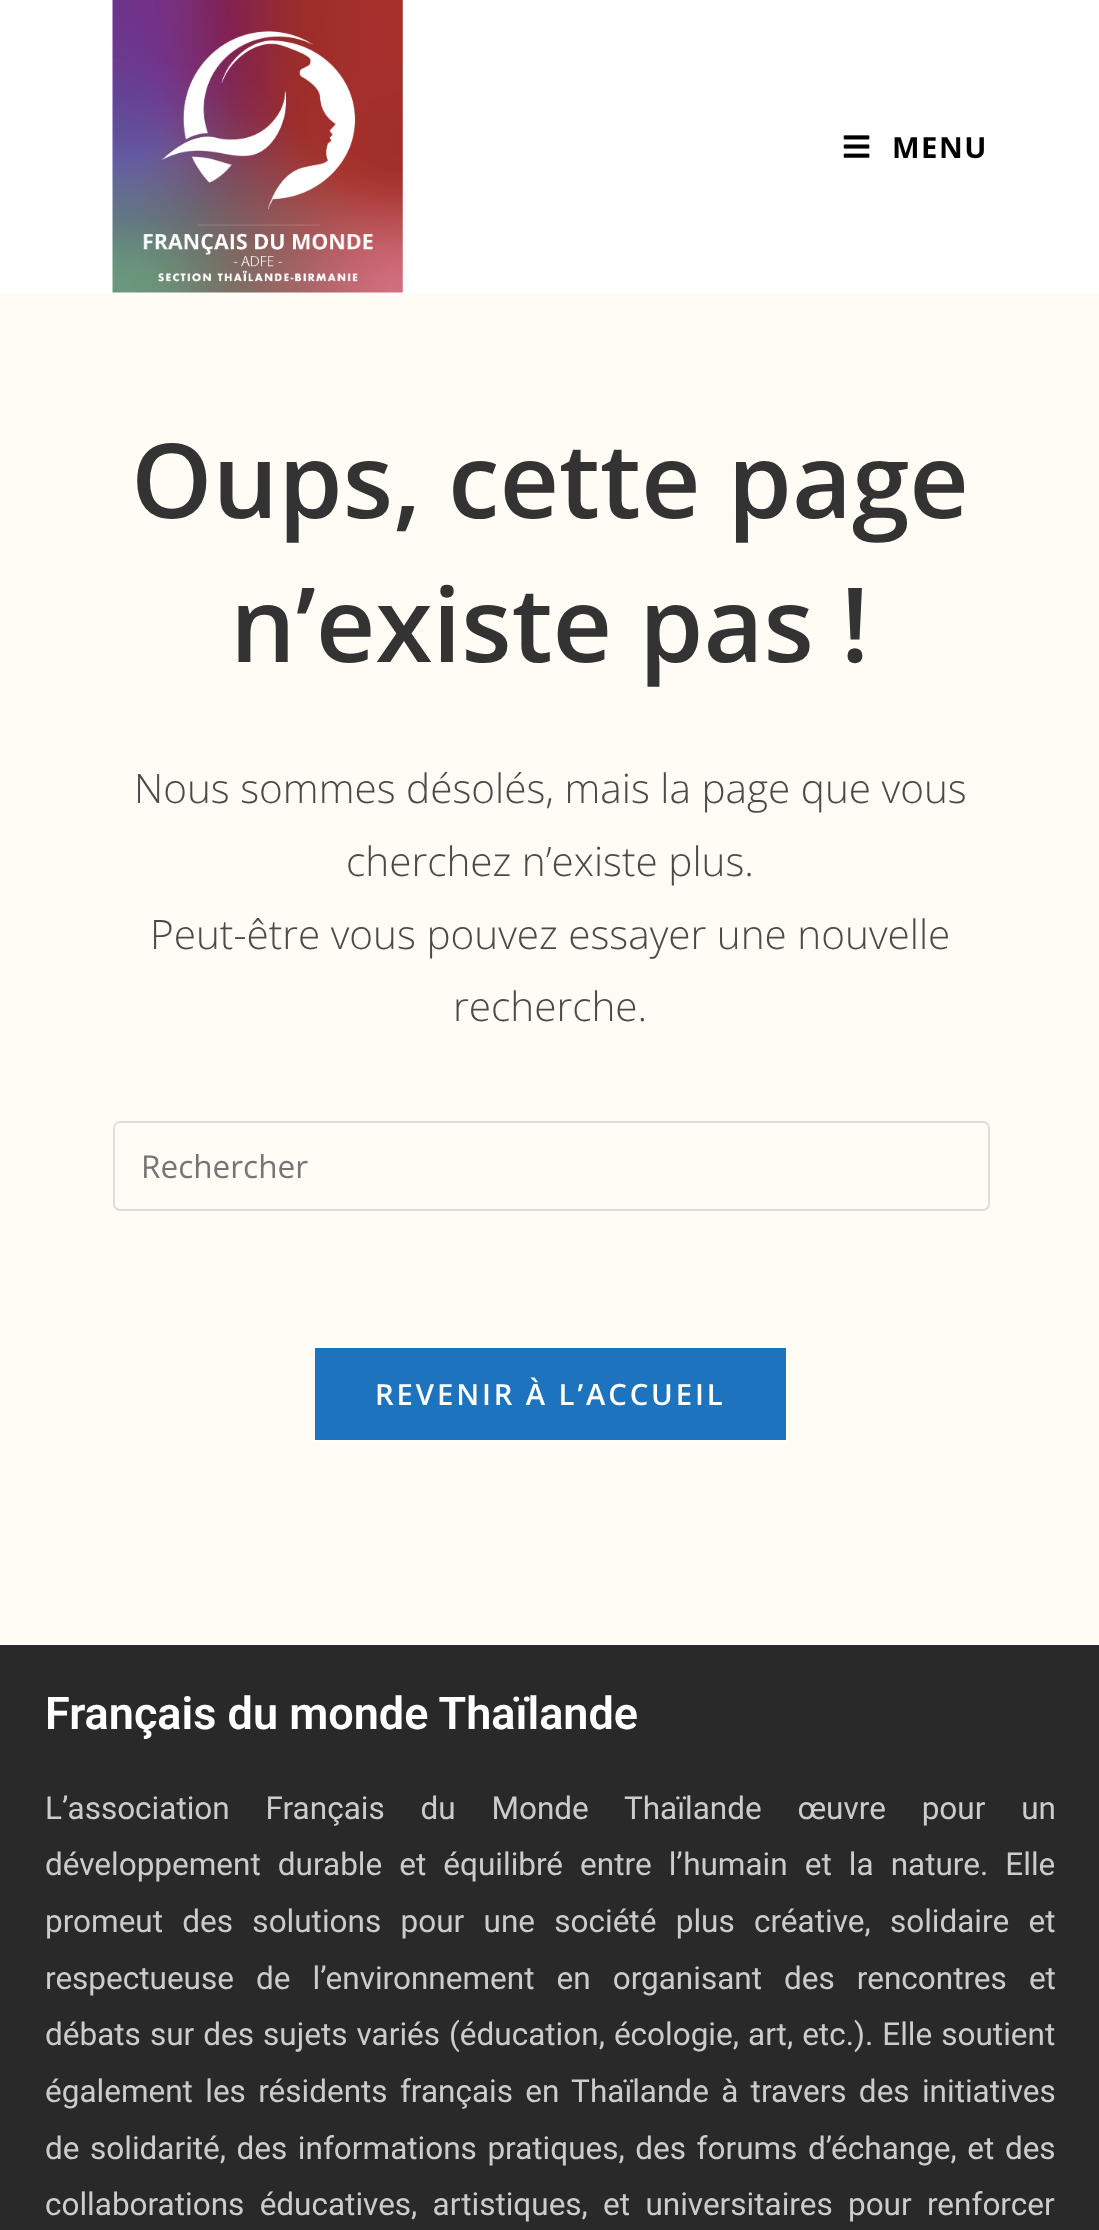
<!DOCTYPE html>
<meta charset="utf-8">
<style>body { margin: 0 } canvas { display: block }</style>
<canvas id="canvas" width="1099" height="2230"></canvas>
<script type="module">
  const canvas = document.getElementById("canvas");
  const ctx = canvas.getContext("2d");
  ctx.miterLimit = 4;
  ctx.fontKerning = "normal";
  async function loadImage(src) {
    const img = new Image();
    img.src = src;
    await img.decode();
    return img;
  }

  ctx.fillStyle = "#fffcf6";
  ctx.fillRect(0, 0, 1099, 2230);
  ctx.fillStyle = "#ffffff";
  ctx.fillRect(0, 0, 1099, 293);
  ctx.drawImage(await loadImage("img1.png"), 112, 0, 291, 293);
  ctx.drawImage(await loadImage("img2.png"), 843, 135, 27, 23);
  ctx.letterSpacing = "1.5px";
  ctx.font = "bold 29.25px Open Sans";
  ctx.fillStyle = "#000000";
  ctx.fillText("MENU", 892, 158);
  ctx.letterSpacing = "0px";
  ctx.font = "600 103.5px Open Sans";
  ctx.fillStyle = "#333333";
  ctx.fillText("Oups, cette page", 131, 518);
  ctx.fillText("n’existe pas !", 230, 662);
  ctx.font = "300 40.5px Open Sans";
  ctx.fillStyle = "#4a4a4a";
  ctx.fillText("Nous sommes désolés, mais la page que vous", 134, 803);
  ctx.fillText("cherchez n’existe plus.", 346, 876);
  ctx.fillText("Peut-être vous pouvez essayer une nouvelle", 150, 949);
  ctx.fillText("recherche.", 453, 1021);
  ctx.beginPath();
  ctx.roundRect(114, 1122, 875, 88, 6);
  ctx.strokeStyle = "#dddddd";
  ctx.lineWidth = 2;
  ctx.stroke();
  ctx.font = "31.5px Open Sans";
  ctx.fillStyle = "#757575";
  ctx.fillText("Rechercher", 141, 1178);
  ctx.fillStyle = "#1e73be";
  ctx.beginPath();
  ctx.rect(314, 1347, 473, 94);
  ctx.fill();
  ctx.strokeStyle = "#ffffff";
  ctx.stroke();
  ctx.letterSpacing = "2.9px";
  ctx.font = "600 29.25px Open Sans";
  ctx.fillStyle = "#ffffff";
  ctx.fillText("REVENIR À L’ACCUEIL", 375, 1405);
  ctx.fillStyle = "#292929";
  ctx.fillRect(0, 1645, 1099, 585);
  ctx.letterSpacing = "0px";
  ctx.font = "600 45px Roboto";
  ctx.fillStyle = "#ffffff";
  ctx.fillText("Français du monde Thaïlande", 45, 1729);
  ctx.wordSpacing = "28px";
  ctx.font = "31.5px Roboto";
  ctx.fillStyle = "#cccccc";
  ctx.fillText("L’association Français du Monde Thaïlande œuvre pour un", 45, 1819);
  ctx.wordSpacing = "9.25px";
  ctx.fillText("développement durable et équilibré entre l’humain et la nature. Elle", 45, 1875);
  ctx.wordSpacing = "11.5px";
  ctx.fillText("promeut des solutions pour une société plus créative, solidaire et", 45, 1932);
  ctx.wordSpacing = "14.25px";
  ctx.fillText("respectueuse de l’environnement en organisant des rencontres et", 45, 1989);
  ctx.wordSpacing = "1.25px";
  ctx.fillText("débats sur des sujets variés (éducation, écologie, art, etc.). Elle soutient", 45, 2045);
  ctx.wordSpacing = "4.5px";
  ctx.fillText("également les résidents français en Thaïlande à travers des initiatives", 45, 2102);
  ctx.wordSpacing = "2.75px";
  ctx.fillText("de solidarité, des informations pratiques, des forums d’échange, et des", 45, 2159);
  ctx.wordSpacing = "7.5px";
  ctx.fillText("collaborations éducatives, artistiques, et universitaires pour renforcer", 45, 2215);
</script>
